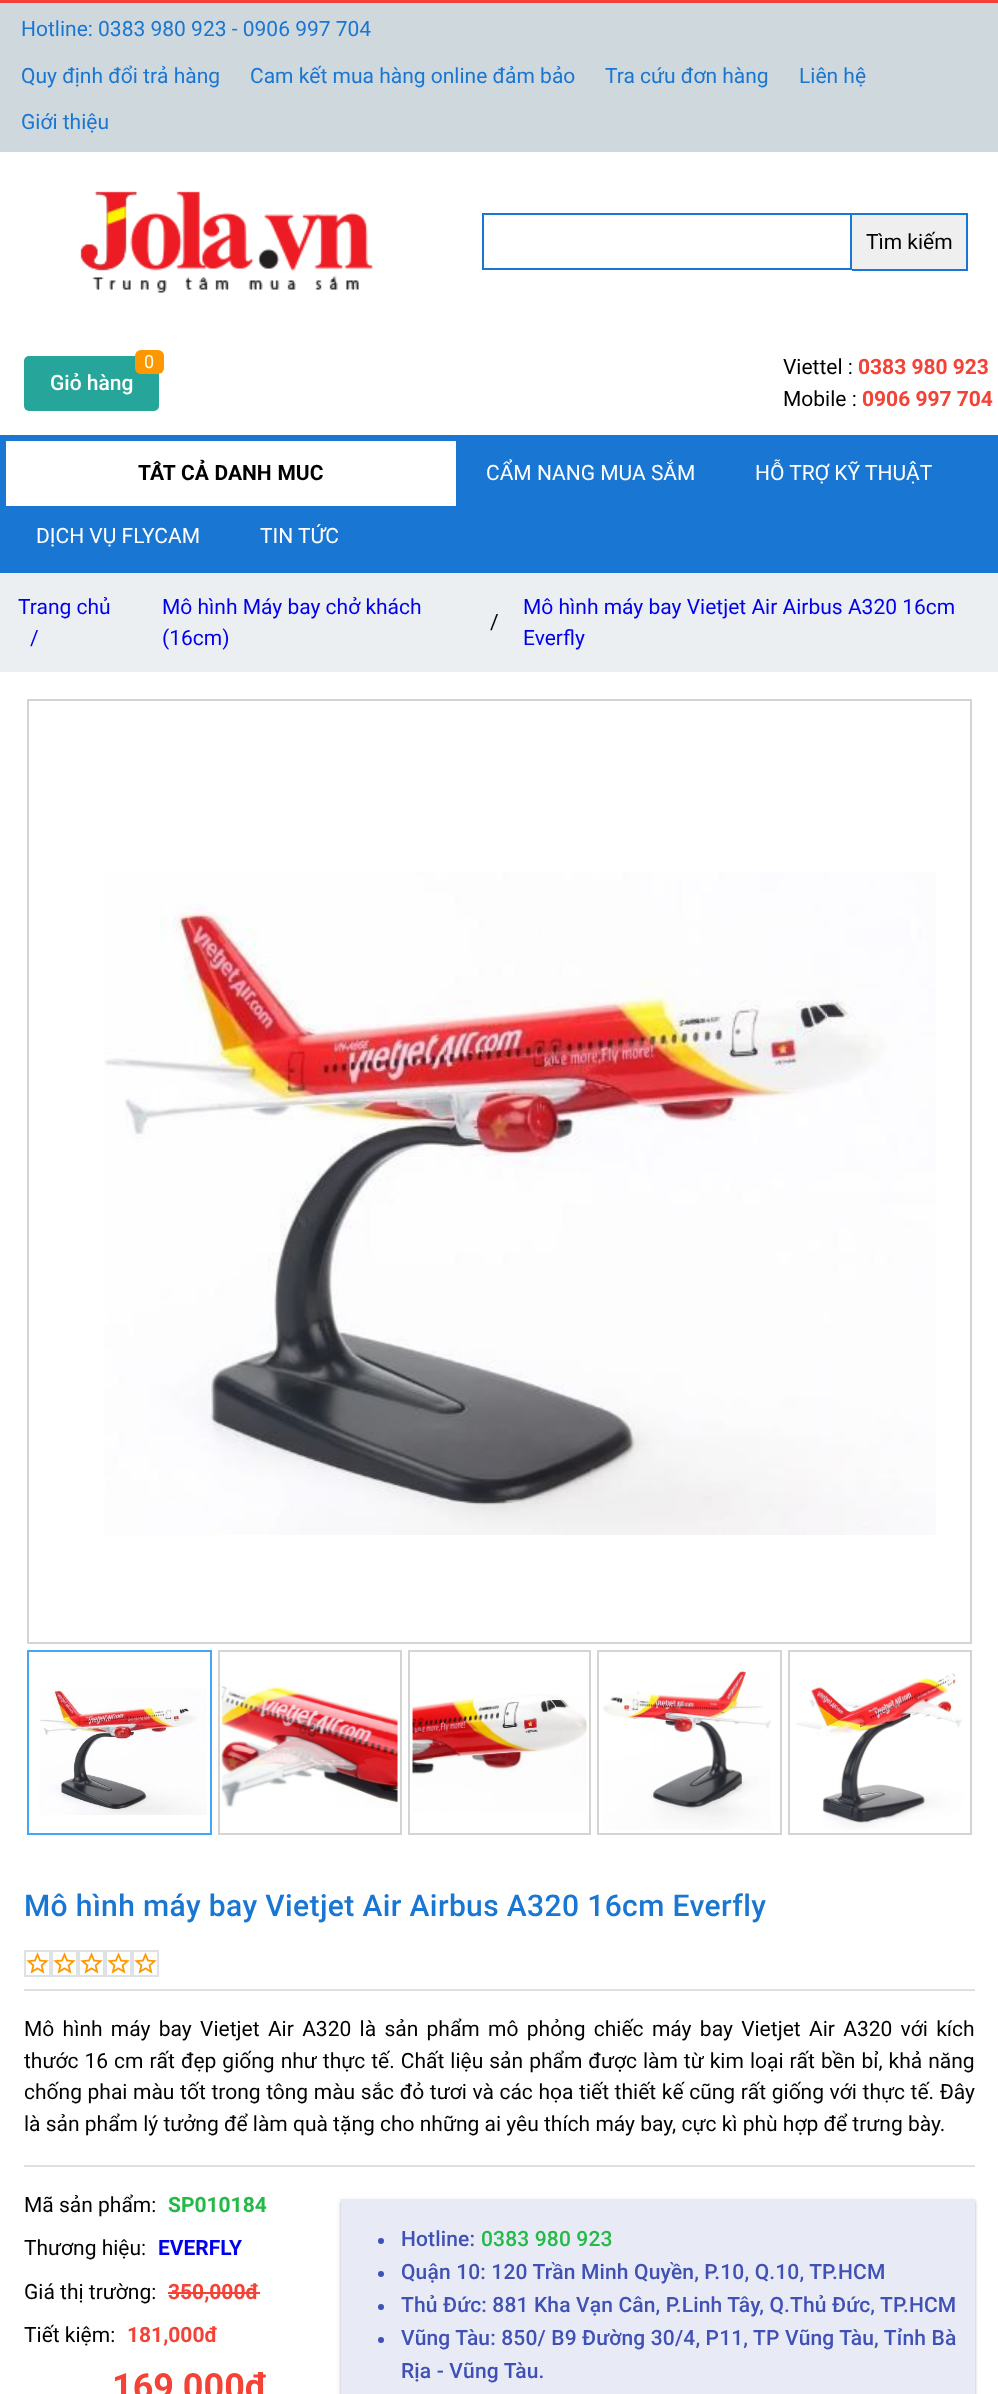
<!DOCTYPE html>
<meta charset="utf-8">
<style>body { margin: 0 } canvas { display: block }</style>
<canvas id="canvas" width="998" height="2394"></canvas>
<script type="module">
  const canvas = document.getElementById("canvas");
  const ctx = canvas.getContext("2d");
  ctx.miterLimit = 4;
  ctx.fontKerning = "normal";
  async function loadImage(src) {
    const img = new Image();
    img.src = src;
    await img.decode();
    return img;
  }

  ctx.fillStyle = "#eceff1";
  ctx.fillRect(0, 0, 998, 2394);
  ctx.fillStyle = "#f44336";
  ctx.fillRect(0, 0, 998, 3);
  ctx.fillStyle = "#cfd8dc";
  ctx.fillRect(0, 3, 998, 149);
  ctx.font = "21px Roboto";
  ctx.fillStyle = "#1976d2";
  ctx.fillText("Hotline: 0383 980 923 - 0906 997 704", 21, 36);
  ctx.fillText("Quy định đổi trả hàng", 21, 83);
  ctx.fillText("Cam kết mua hàng online đảm bảo", 250, 83);
  ctx.fillText("Tra cứu đơn hàng", 605, 83);
  ctx.fillText("Liên hệ", 799, 83);
  ctx.fillText("Giới thiệu", 21, 129);
  ctx.fillStyle = "#ffffff";
  ctx.fillRect(0, 152, 998, 283);
  ctx.drawImage(await loadImage("img1.png"), 80, 191, 293, 102);
  ctx.strokeStyle = "#1976d2";
  ctx.lineWidth = 2;
  ctx.strokeRect(483, 214, 368, 55);
  ctx.fillStyle = "#efefef";
  ctx.fillRect(852, 215, 114, 54);
  ctx.fillStyle = "#1976d2";
  ctx.fillRect(852, 213, 116, 2);
  ctx.fillRect(966, 213, 2, 57);
  ctx.fillRect(852, 269, 116, 2);
  ctx.fillStyle = "#000000";
  ctx.fillText("Tìm kiếm", 866, 249);
  ctx.fillStyle = "#26a69a";
  ctx.beginPath();
  ctx.roundRect(24, 356, 135, 55, 5);
  ctx.fill();
  ctx.fillStyle = "#ff9800";
  ctx.beginPath();
  ctx.roundRect(135, 350, 29, 24, 6);
  ctx.fill();
  ctx.font = "18px Roboto";
  ctx.fillStyle = "#ffffff";
  ctx.fillText("0", 144, 368);
  ctx.font = "500 21px Roboto";
  ctx.fillText("Giỏ hàng", 50, 390);
  ctx.font = "21px Roboto";
  ctx.fillStyle = "#000000";
  ctx.fillText("Viettel :", 783, 374);
  ctx.font = "bold 21px Roboto";
  ctx.fillStyle = "#f44336";
  ctx.fillText("0383 980 923", 858, 374);
  ctx.font = "21px Roboto";
  ctx.fillStyle = "#000000";
  ctx.fillText("Mobile :", 783, 406);
  ctx.font = "bold 21px Roboto";
  ctx.fillStyle = "#f44336";
  ctx.fillText("0906 997 704", 862, 406);
  ctx.fillStyle = "#1976d2";
  ctx.fillRect(0, 435, 998, 138);
  ctx.fillStyle = "#ffffff";
  ctx.fillRect(6, 441, 450, 65);
  ctx.wordSpacing = "0.5px";
  ctx.fillStyle = "#000000";
  ctx.fillText("TẤT CẢ DANH MUC", 138, 480);
  ctx.wordSpacing = "0px";
  ctx.font = "21px Roboto";
  ctx.fillStyle = "#ffffff";
  ctx.fillText("CẨM NANG MUA SẮM", 486, 480);
  ctx.fillText("HỖ TRỢ KỸ THUẬT", 755, 480);
  ctx.fillText("DỊCH VỤ FLYCAM", 36, 543);
  ctx.fillText("TIN TỨC", 260, 543);
  ctx.fillStyle = "#0000ee";
  ctx.fillText("Trang chủ", 18, 614);
  ctx.fillText("/", 30, 645);
  ctx.fillText("Mô hình Máy bay chở khách", 162, 614);
  ctx.fillText("(16cm)", 162, 645);
  ctx.fillStyle = "#000000";
  ctx.fillText("/", 490, 629);
  ctx.fillStyle = "#0000ee";
  ctx.fillText("Mô hình máy bay Vietjet Air Airbus A320 16cm", 523, 614);
  ctx.fillText("Everfly", 523, 645);
  ctx.fillStyle = "#ffffff";
  ctx.fillRect(0, 672, 998, 1722);
  ctx.strokeStyle = "#d4d4d4";
  ctx.strokeRect(28, 700, 943, 943);
  ctx.drawImage(await loadImage("img2.png"), 104, 872, 832, 663);
  ctx.strokeStyle = "#42a5f5";
  ctx.strokeRect(28, 1651, 183, 183);
  ctx.drawImage(await loadImage("img3.png"), 39, 1688, 168, 127);
  ctx.strokeStyle = "#d4d4d4";
  ctx.strokeRect(219, 1651, 182, 183);
  ctx.drawImage(await loadImage("img4.png"), 221, 1686, 177, 122);
  ctx.strokeRect(409, 1651, 181, 183);
  ctx.drawImage(await loadImage("img5.png"), 412, 1694, 175, 118);
  ctx.strokeRect(598, 1651, 183, 183);
  ctx.drawImage(await loadImage("img6.png"), 603, 1670, 168, 160);
  ctx.strokeRect(789, 1651, 182, 183);
  ctx.drawImage(await loadImage("img7.png"), 796, 1673, 167, 157);
  ctx.letterSpacing = "0.38px";
  ctx.font = "500 30px Roboto";
  ctx.fillStyle = "#1976d2";
  ctx.fillText("Mô hình máy bay Vietjet Air Airbus A320 16cm Everfly", 24, 1916);
  ctx.drawImage(await loadImage("img8.png"), 26, 1952, 23, 22);
  ctx.strokeStyle = "#dee2e6";
  ctx.strokeRect(25, 1951, 25, 25);
  ctx.drawImage(await loadImage("img8.png"), 53, 1952, 23, 22);
  ctx.strokeRect(52, 1951, 25, 25);
  ctx.drawImage(await loadImage("img8.png"), 80, 1952, 23, 22);
  ctx.strokeRect(79, 1951, 25, 25);
  ctx.drawImage(await loadImage("img8.png"), 107, 1952, 23, 22);
  ctx.strokeRect(106, 1951, 25, 25);
  ctx.drawImage(await loadImage("img8.png"), 134, 1952, 23, 22);
  ctx.strokeRect(133, 1951, 25, 25);
  ctx.fillStyle = "#e0e0e0";
  ctx.fillRect(24, 1989, 951, 2);
  ctx.letterSpacing = "0px";
  ctx.wordSpacing = "3.1px";
  ctx.font = "21px Roboto";
  ctx.fillStyle = "#000000";
  ctx.fillText("Mô hình máy bay Vietjet Air A320 là sản phẩm mô phỏng chiếc máy bay Vietjet Air A320 với kích", 24, 2036);
  ctx.wordSpacing = "0.8px";
  ctx.fillText("thước 16 cm rất đẹp giống như thực tế. Chất liệu sản phẩm được làm từ kim loại rất bền bỉ, khả năng", 24, 2068);
  ctx.wordSpacing = "0.4px";
  ctx.fillText("chống phai màu tốt trong tông màu sắc đỏ tươi và các họa tiết thiết kế cũng rất giống với thực tế. Đây", 24, 2099);
  ctx.wordSpacing = "0px";
  ctx.fillText("là sản phẩm lý tưởng để làm quà tặng cho những ai yêu thích máy bay, cực kì phù hợp để trưng bày.", 24, 2131);
  ctx.fillStyle = "#e0e0e0";
  ctx.fillRect(24, 2165, 951, 2);
  ctx.fillStyle = "#000000";
  ctx.fillText("Mã sản phẩm:", 24, 2212);
  ctx.font = "bold 21px Roboto";
  ctx.fillStyle = "#21ba45";
  ctx.fillText("SP010184", 168, 2212);
  ctx.font = "21px Roboto";
  ctx.fillStyle = "#000000";
  ctx.fillText("Thương hiệu:", 24, 2255);
  ctx.font = "bold 21px Roboto";
  ctx.fillStyle = "#0000ee";
  ctx.fillText("EVERFLY", 158, 2255);
  ctx.font = "21px Roboto";
  ctx.fillStyle = "#000000";
  ctx.fillText("Giá thị trường:", 24, 2299);
  ctx.font = "bold 21px Roboto";
  ctx.fillStyle = "#f44336";
  ctx.fillText("350,000đ", 168, 2299);
  ctx.fillRect(168, 2292, 92, 2);
  ctx.font = "21px Roboto";
  ctx.fillStyle = "#000000";
  ctx.fillText("Tiết kiệm:", 24, 2342);
  ctx.font = "bold 21px Roboto";
  ctx.fillStyle = "#f44336";
  ctx.fillText("181,000đ", 127, 2342);
  ctx.font = "bold 36px Roboto";
  ctx.fillText("169,000đ", 112, 2399);
  ctx.fillStyle = "rgba(0, 0, 0, 0.14)";
  ctx.filter = "blur(1px)";
  ctx.beginPath();
  ctx.rect(341, 2201, 634, 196);
  ctx.fill();
  ctx.filter = "none";
  ctx.fillStyle = "rgba(0, 0, 0, 0.2)";
  ctx.filter = "blur(2px)";
  ctx.beginPath();
  ctx.rect(341, 2201, 634, 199);
  ctx.fill();
  ctx.filter = "none";
  ctx.fillStyle = "#e8eaf6";
  ctx.fillRect(341, 2199, 634, 195);
  ctx.fillStyle = "#3f51b5";
  ctx.beginPath();
  ctx.arc(381, 2241, 3, 0, Math.PI * 2);
  ctx.fill();
  ctx.letterSpacing = "0.15px";
  ctx.font = "500 21px Roboto";
  ctx.fillText("Hotline:", 401, 2246);
  ctx.fillStyle = "#21ba45";
  ctx.fillText("0383 980 923", 481, 2246);
  ctx.fillStyle = "#3f51b5";
  ctx.beginPath();
  ctx.arc(381, 2274, 3, 0, Math.PI * 2);
  ctx.fill();
  ctx.fillText("Quận 10: 120 Trần Minh Quyền, P.10, Q.10, TP.HCM", 401, 2279);
  ctx.beginPath();
  ctx.arc(381, 2307, 3, 0, Math.PI * 2);
  ctx.fill();
  ctx.fillText("Thủ Đức: 881 Kha Vạn Cân, P.Linh Tây, Q.Thủ Đức, TP.HCM", 401, 2312);
  ctx.beginPath();
  ctx.arc(381, 2340, 3, 0, Math.PI * 2);
  ctx.fill();
  ctx.fillText("Vũng Tàu: 850/ B9 Đường 30/4, P11, TP Vũng Tàu, Tỉnh Bà", 401, 2345);
  ctx.fillText("Rịa - Vũng Tàu.", 401, 2378);
</script>
